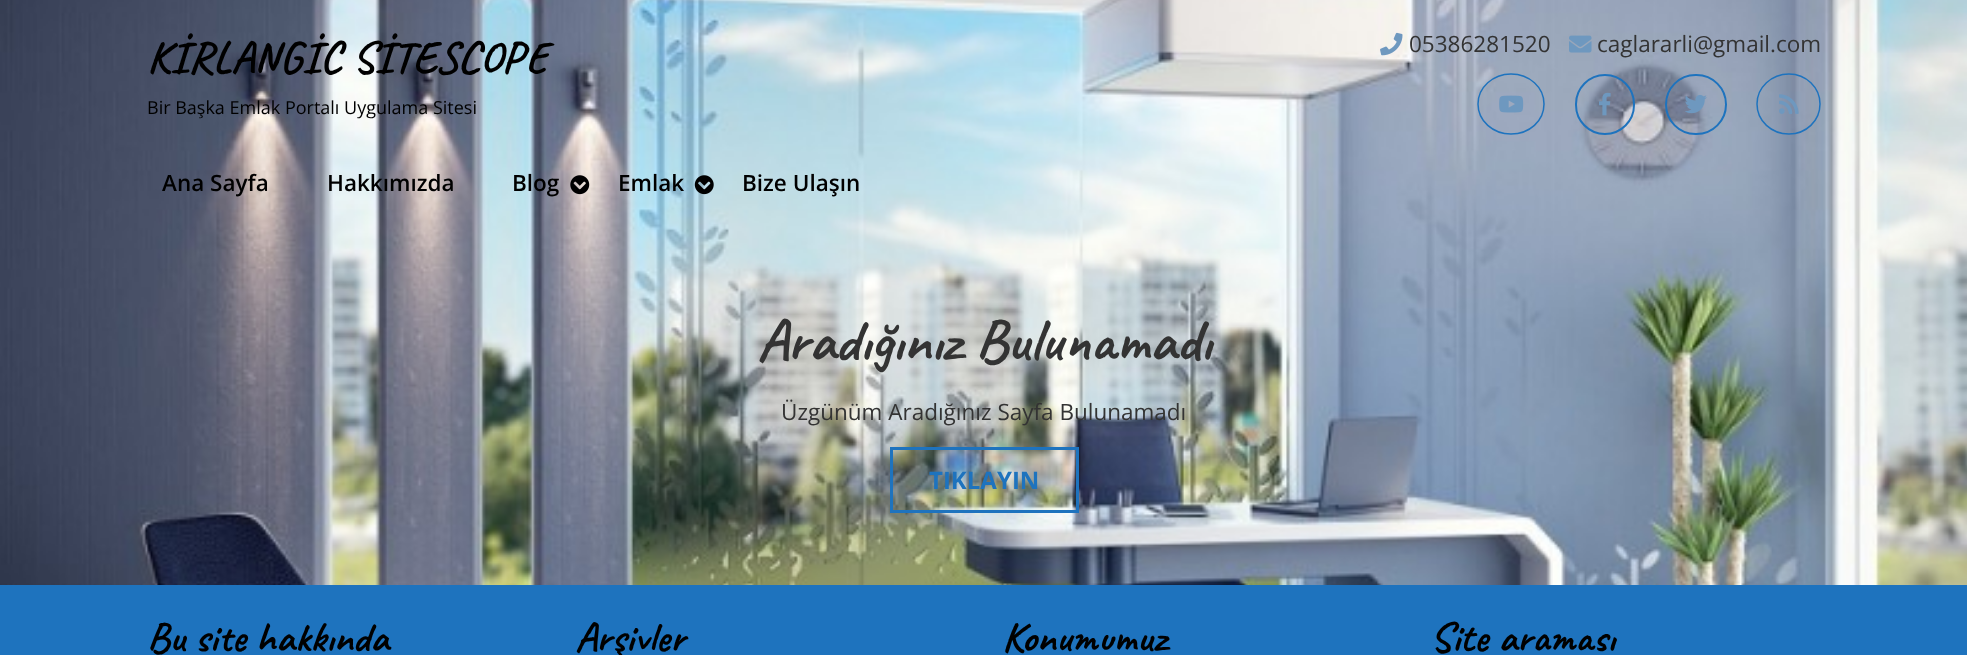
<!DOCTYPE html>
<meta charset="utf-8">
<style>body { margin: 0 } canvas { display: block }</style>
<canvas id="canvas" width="1967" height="655"></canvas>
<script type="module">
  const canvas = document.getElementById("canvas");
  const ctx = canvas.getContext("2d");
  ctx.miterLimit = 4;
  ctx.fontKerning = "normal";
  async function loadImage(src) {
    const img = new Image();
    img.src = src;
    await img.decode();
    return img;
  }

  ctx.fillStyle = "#ffffff";
  ctx.fillRect(0, 0, 1967, 655);
  ctx.drawImage(await loadImage("img1.png"), 0, 0, 1967, 585);
  ctx.font = "bold 45px Caveat";
  ctx.fillStyle = "#000000";
  ctx.fillText("KİRLANGİC SİTESCOPE", 147, 72);
  ctx.font = "18px Open Sans";
  ctx.fillText("Bir Başka Emlak Portalı Uygulama Sitesi", 147, 114);
  ctx.drawImage(await loadImage("img2.png"), 1380, 32, 23, 24);
  ctx.font = "22.5px Open Sans";
  ctx.fillStyle = "#333333";
  ctx.fillText("05386281520", 1409, 52);
  ctx.drawImage(await loadImage("img3.png"), 1569, 35, 23, 18);
  ctx.fillText("caglararli@gmail.com", 1597, 52);
  ctx.beginPath();
  ctx.moveTo(1511, 74);
  ctx.bezierCurveTo(1529.5, 74, 1544, 87.5, 1544, 104);
  ctx.bezierCurveTo(1544, 121, 1529.5, 134, 1511, 134);
  ctx.bezierCurveTo(1493, 134, 1478, 121, 1478, 104);
  ctx.bezierCurveTo(1478, 87.5, 1493, 74, 1511, 74);
  ctx.closePath();
  ctx.strokeStyle = "#1e73be";
  ctx.lineWidth = 1.5;
  ctx.stroke();
  ctx.drawImage(await loadImage("img4.png"), 1499, 95, 25, 18);
  ctx.beginPath();
  ctx.roundRect(1576, 75, 58, 59, 29);
  ctx.lineWidth = 2;
  ctx.stroke();
  ctx.drawImage(await loadImage("img5.png"), 1599, 92, 12, 24);
  ctx.beginPath();
  ctx.roundRect(1666, 75, 60, 59, 29.5);
  ctx.stroke();
  ctx.drawImage(await loadImage("img6.png"), 1685, 95, 22, 19);
  ctx.beginPath();
  ctx.moveTo(1789, 74);
  ctx.bezierCurveTo(1806, 74, 1820, 87.5, 1820, 104);
  ctx.bezierCurveTo(1820, 121, 1806, 134, 1789, 134);
  ctx.bezierCurveTo(1771.5, 134, 1757, 121, 1757, 104);
  ctx.bezierCurveTo(1757, 87.5, 1771.5, 74, 1789, 74);
  ctx.closePath();
  ctx.lineWidth = 1.5;
  ctx.stroke();
  ctx.drawImage(await loadImage("img7.png"), 1779, 94, 20, 20);
  ctx.font = "600 22.5px Open Sans";
  ctx.fillStyle = "#000000";
  ctx.fillText("Ana Sayfa", 162, 191);
  ctx.fillText("Hakkımızda", 327, 191);
  ctx.fillText("Blog", 512, 191);
  ctx.drawImage(await loadImage("img8.png"), 570, 175, 20, 20);
  ctx.fillText("Emlak", 618, 191);
  ctx.drawImage(await loadImage("img9.png"), 694, 175, 20, 20);
  ctx.fillText("Bize Ulaşın", 742, 191);
  ctx.font = "bold 60px Caveat";
  ctx.fillStyle = "#333333";
  ctx.fillText("Aradığınız Bulunamadı", 757, 360);
  ctx.font = "22.5px Open Sans";
  ctx.fillText("Üzgünüm Aradığınız Sayfa Bulunamadı", 781, 420);
  ctx.lineWidth = 3;
  ctx.strokeRect(891.5, 448.5, 186, 63);
  ctx.font = "bold 24px Open Sans";
  ctx.fillStyle = "#1e73be";
  ctx.fillText("TIKLAYIN", 929, 489);
  ctx.fillRect(0, 585, 1967, 70);
  ctx.font = "bold 42px Caveat";
  ctx.fillStyle = "#000000";
  ctx.fillText("Bu site hakkında", 147, 651);
  ctx.fillText("Arşivler", 575, 651);
  ctx.fillText("Konumumuz", 1002, 651);
  ctx.fillText("Site araması", 1430, 651);
</script>
